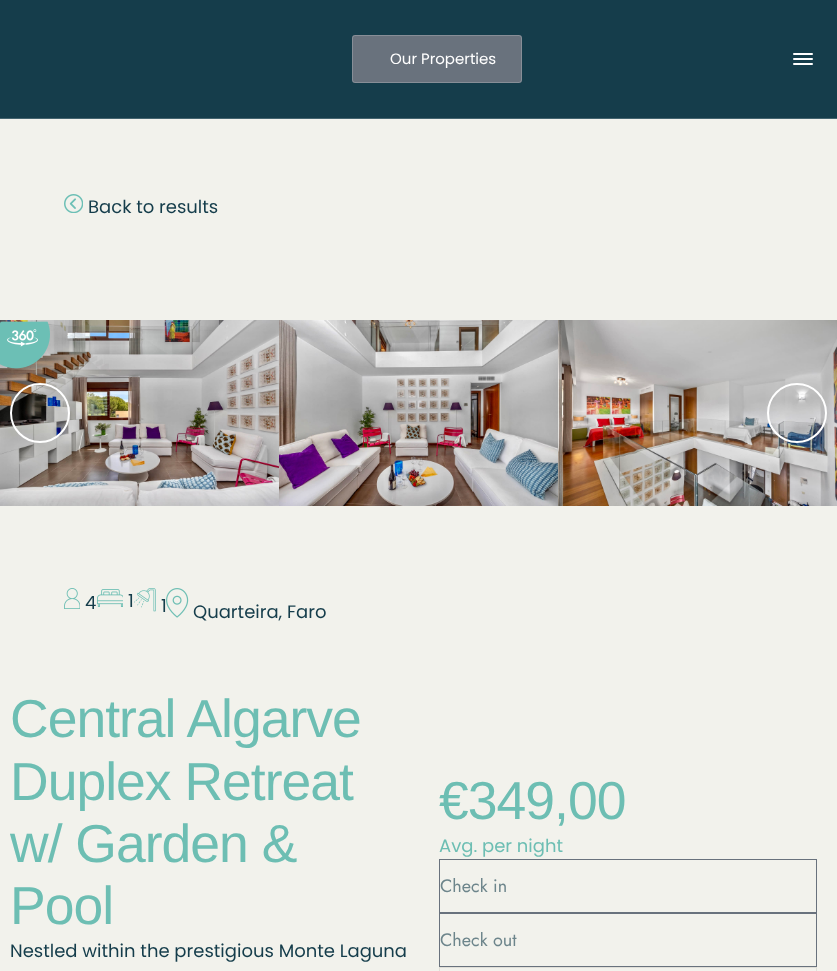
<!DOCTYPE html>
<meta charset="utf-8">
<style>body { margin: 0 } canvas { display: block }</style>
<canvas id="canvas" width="837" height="971"></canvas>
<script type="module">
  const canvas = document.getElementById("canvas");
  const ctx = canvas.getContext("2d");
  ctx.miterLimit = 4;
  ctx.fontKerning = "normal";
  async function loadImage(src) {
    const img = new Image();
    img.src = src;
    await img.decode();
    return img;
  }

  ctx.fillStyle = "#f2f2ec";
  ctx.fillRect(0, 0, 837, 971);
  ctx.fillStyle = "#153d4b";
  ctx.fillRect(0, 0, 837, 118);
  ctx.fillStyle = "#44646f";
  ctx.fillRect(0, 118, 837, 1);
  ctx.fillStyle = "#69727d";
  ctx.beginPath();
  ctx.roundRect(352, 35, 170, 48, 3);
  ctx.fill();
  ctx.beginPath();
  ctx.roundRect(352.5, 35.5, 169, 47, 2.5);
  ctx.strokeStyle = "rgba(255, 255, 255, 0.2)";
  ctx.stroke();
  ctx.font = "15px Poppins";
  ctx.fillStyle = "#ffffff";
  ctx.fillText("Our Properties", 390, 64);
  ctx.beginPath();
  ctx.roundRect(793, 53, 20, 2, 1);
  ctx.fill();
  ctx.beginPath();
  ctx.roundRect(793, 58, 20, 2, 1);
  ctx.fill();
  ctx.beginPath();
  ctx.roundRect(793, 63, 20, 2, 1);
  ctx.fill();
  ctx.drawImage(await loadImage("img1.png"), 64, 194, 19, 19);
  ctx.font = "18px Poppins";
  ctx.fillStyle = "#153d4b";
  ctx.fillText("Back to results", 88, 213);
  ctx.drawImage(await loadImage("img2.png"), 0, 320, 279, 186);
  ctx.drawImage(await loadImage("img3.png"), 279, 320, 279, 186);
  ctx.drawImage(await loadImage("img4.png"), 558, 320, 279, 186);
  ctx.beginPath();
  ctx.arc(40, 413, 29, 0, Math.PI * 2);
  ctx.strokeStyle = "#ffffff";
  ctx.lineWidth = 2;
  ctx.stroke();
  ctx.beginPath();
  ctx.arc(797, 413, 29, 0, Math.PI * 2);
  ctx.stroke();
  ctx.drawImage(await loadImage("img5.png"), 0, 321, 50, 48);
  ctx.drawImage(await loadImage("img6.png"), 64, 588, 16, 21);
  ctx.fillText("4", 85, 609);
  ctx.drawImage(await loadImage("img7.png"), 97, 589, 26, 18);
  ctx.fillText("1", 128, 607);
  ctx.drawImage(await loadImage("img8.png"), 134, 588, 22, 24);
  ctx.fillText("1", 161, 612);
  ctx.drawImage(await loadImage("img9.png"), 166, 588, 23, 30);
  ctx.fillText("Quarteira, Faro", 193, 618);
  ctx.letterSpacing = "-1px";
  ctx.font = "53.5px Liberation Sans";
  ctx.fillStyle = "#6dbeb3";
  ctx.fillText("Central Algarve", 10, 737);
  ctx.fillText("Duplex Retreat", 10, 800);
  ctx.fillText("w/ Garden &", 10, 862);
  ctx.fillText("Pool", 10, 924);
  ctx.letterSpacing = "0px";
  ctx.font = "18px Poppins";
  ctx.fillStyle = "#153d4b";
  ctx.fillText("Nestled within the prestigious Monte Laguna", 10, 957);
  ctx.letterSpacing = "-1px";
  ctx.font = "53.5px Liberation Sans";
  ctx.fillStyle = "#6dbeb3";
  ctx.fillText("€349,00", 439, 819);
  ctx.letterSpacing = "0px";
  ctx.font = "18px Poppins";
  ctx.fillText("Avg. per night", 439, 852);
  ctx.strokeStyle = "#69727d";
  ctx.lineWidth = 1;
  ctx.strokeRect(439.5, 859.5, 377, 53);
  ctx.font = "18px Jost";
  ctx.fillStyle = "#6d858b";
  ctx.fillText("Check in", 440, 892);
  ctx.strokeRect(439.5, 913.5, 377, 53);
  ctx.fillText("Check out", 440, 946);
  ctx.strokeStyle = "#e0dfd8";
  ctx.strokeRect(439.5, 967.5, 377, 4);
</script>
